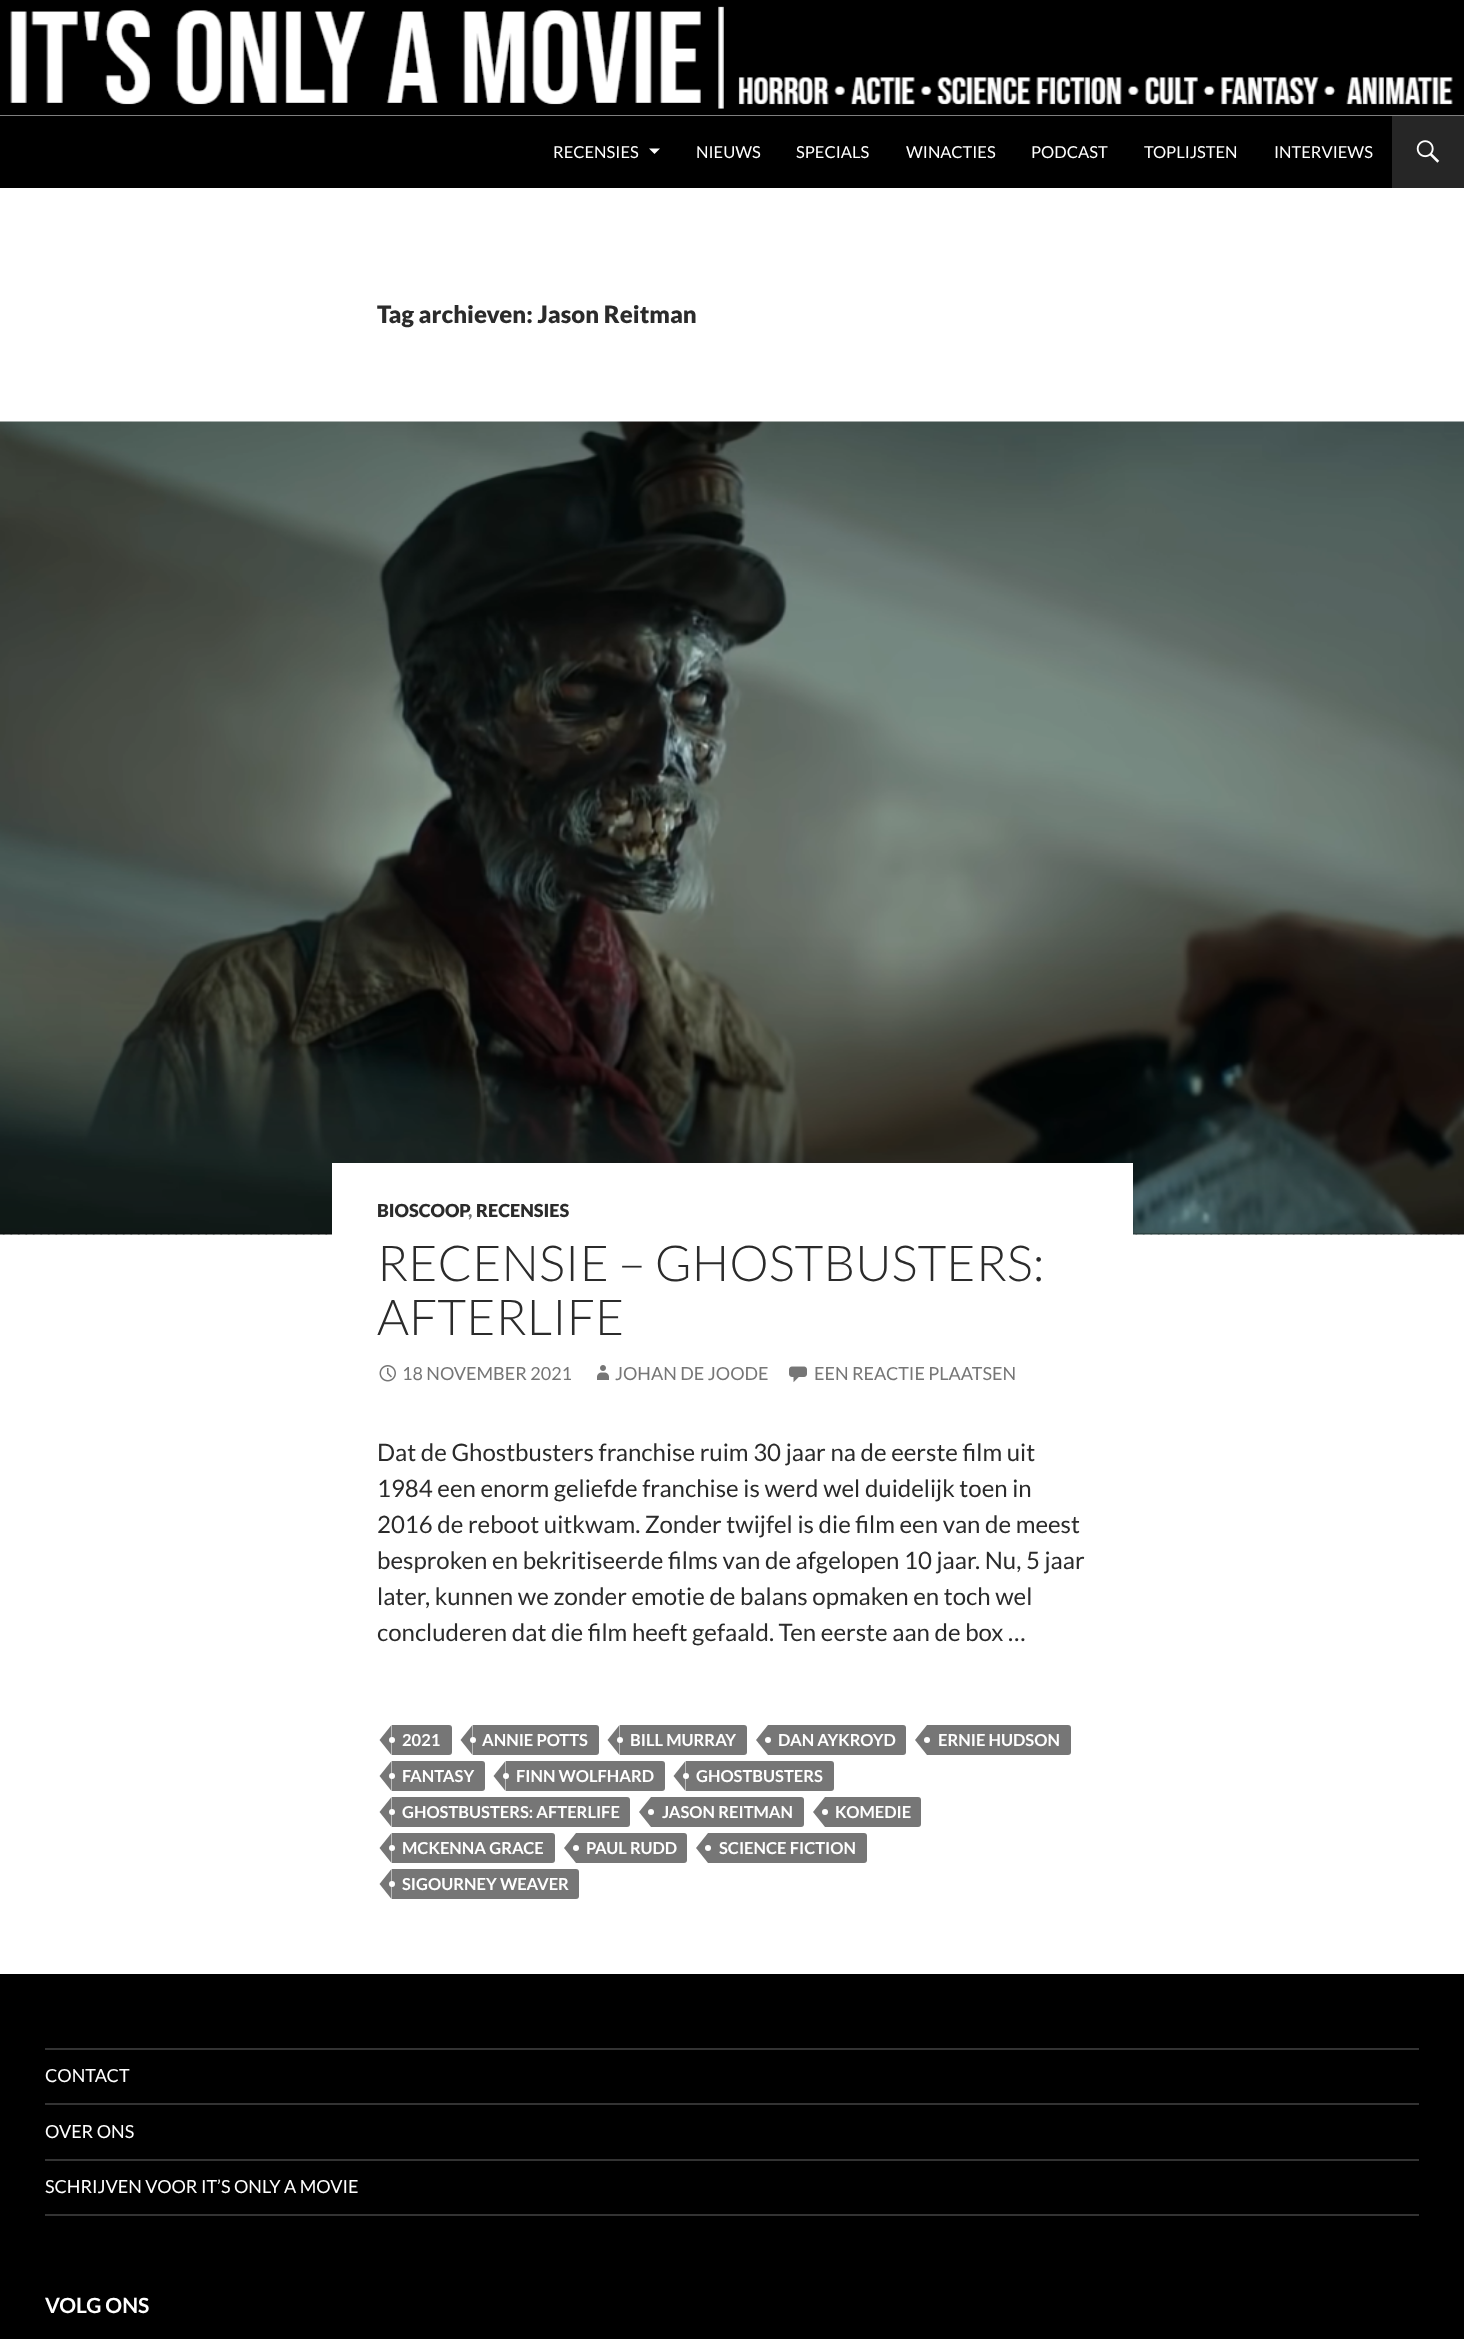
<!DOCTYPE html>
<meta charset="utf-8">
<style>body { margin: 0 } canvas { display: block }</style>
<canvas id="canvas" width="1464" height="2339"></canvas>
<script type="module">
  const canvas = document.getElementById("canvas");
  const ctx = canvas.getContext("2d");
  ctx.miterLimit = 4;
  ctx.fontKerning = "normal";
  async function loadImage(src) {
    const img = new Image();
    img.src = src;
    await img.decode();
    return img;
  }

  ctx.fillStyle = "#ffffff";
  ctx.fillRect(0, 0, 1464, 2339);
  ctx.drawImage(await loadImage("img1.png"), 0, 0, 1464, 116);
  ctx.fillStyle = "#000000";
  ctx.fillRect(0, 116, 1392, 72);
  ctx.font = "16.5px Lato";
  ctx.fillStyle = "#ffffff";
  ctx.fillText("RECENSIES", 553, 158);
  ctx.beginPath();
  ctx.moveTo(649, 148.5);
  ctx.lineTo(660, 148.5);
  ctx.lineTo(654.5, 154);
  ctx.closePath();
  ctx.fill();
  ctx.fillText("NIEUWS", 696, 158);
  ctx.fillText("SPECIALS", 796, 158);
  ctx.fillText("WINACTIES", 906, 158);
  ctx.fillText("PODCAST", 1031, 158);
  ctx.fillText("TOPLIJSTEN", 1144, 158);
  ctx.fillText("INTERVIEWS", 1274, 158);
  ctx.fillStyle = "#262626";
  ctx.fillRect(1392, 116, 72, 72);
  ctx.drawImage(await loadImage("img2.png"), 1416, 140, 24, 23);
  ctx.font = "900 24px Lato";
  ctx.fillStyle = "#2b2b2b";
  ctx.fillText("Tag archieven: Jason Reitman", 377, 323);
  ctx.fillStyle = "#b2b2b2";
  ctx.fillRect(2, 1234, 1458, 1);
  ctx.drawImage(await loadImage("img3.png"), 0, 1234, 1464, 1);
  ctx.drawImage(await loadImage("img4.png"), 0, 421, 1464, 814);
  ctx.fillStyle = "#ffffff";
  ctx.fillRect(332, 1163, 801, 72);
  ctx.font = "900 18px Lato";
  ctx.fillStyle = "#2b2b2b";
  ctx.fillText("BIOSCOOP", 377, 1217);
  ctx.fillText("RECENSIES", 476, 1217);
  ctx.fillStyle = "#767676";
  ctx.fillText(",", 468, 1217);
  ctx.font = "300 49.5px Lato";
  ctx.fillStyle = "#2b2b2b";
  ctx.fillText("RECENSIE – GHOSTBUSTERS:", 377, 1281);
  ctx.fillText("AFTERLIFE", 377, 1335);
  ctx.drawImage(await loadImage("img5.png"), 379, 1365, 17, 17);
  ctx.font = "18px Lato";
  ctx.fillStyle = "#767676";
  ctx.fillText("18 NOVEMBER 2021", 402, 1380);
  ctx.drawImage(await loadImage("img6.png"), 597, 1365, 12, 15);
  ctx.fillText("JOHAN DE JOODE", 615, 1380);
  ctx.drawImage(await loadImage("img7.png"), 789, 1366, 18, 17);
  ctx.fillText("EEN REACTIE PLAATSEN", 814, 1380);
  ctx.font = "24px Lato";
  ctx.fillStyle = "#2b2b2b";
  ctx.fillText("Dat de Ghostbusters franchise ruim 30 jaar na de eerste film uit", 377, 1461);
  ctx.fillText("1984 een enorm geliefde franchise is werd wel duidelijk toen in", 377, 1497);
  ctx.fillText("2016 de reboot uitkwam. Zonder twijfel is die film een van de meest", 377, 1533);
  ctx.fillText("besproken en bekritiseerde films van de afgelopen 10 jaar. Nu, 5 jaar", 377, 1569);
  ctx.fillText("later, kunnen we zonder emotie de balans opmaken en toch wel", 377, 1605);
  ctx.fillText("concluderen dat die film heeft gefaald. Ten eerste aan de box …", 377, 1641);
  ctx.fillStyle = "#767676";
  ctx.beginPath();
  ctx.roundRect(392, 1725, 60, 30, [0, 3, 3, 0]);
  ctx.fill();
  ctx.beginPath();
  ctx.moveTo(391.5, 1725);
  ctx.lineTo(391.5, 1755);
  ctx.lineTo(379.5, 1740);
  ctx.closePath();
  ctx.fill();
  ctx.font = "bold 16.5px Lato";
  ctx.fillStyle = "#ffffff";
  ctx.fillText("2021", 402, 1746);
  ctx.beginPath();
  ctx.arc(392, 1740, 3, 0, Math.PI * 2);
  ctx.fill();
  ctx.fillStyle = "#767676";
  ctx.beginPath();
  ctx.roundRect(473, 1725, 126, 30, [0, 3, 3, 0]);
  ctx.fill();
  ctx.beginPath();
  ctx.moveTo(472.5, 1725);
  ctx.lineTo(472.5, 1755);
  ctx.lineTo(460.5, 1740);
  ctx.closePath();
  ctx.fill();
  ctx.fillStyle = "#ffffff";
  ctx.fillText("ANNIE POTTS", 482, 1746);
  ctx.beginPath();
  ctx.arc(473, 1740, 3, 0, Math.PI * 2);
  ctx.fill();
  ctx.fillStyle = "#767676";
  ctx.beginPath();
  ctx.roundRect(620, 1725, 127, 30, [0, 3, 3, 0]);
  ctx.fill();
  ctx.beginPath();
  ctx.moveTo(619.5, 1725);
  ctx.lineTo(619.5, 1755);
  ctx.lineTo(607.5, 1740);
  ctx.closePath();
  ctx.fill();
  ctx.fillStyle = "#ffffff";
  ctx.fillText("BILL MURRAY", 630, 1746);
  ctx.beginPath();
  ctx.arc(620, 1740, 3, 0, Math.PI * 2);
  ctx.fill();
  ctx.fillStyle = "#767676";
  ctx.beginPath();
  ctx.roundRect(768, 1725, 138, 30, [0, 3, 3, 0]);
  ctx.fill();
  ctx.beginPath();
  ctx.moveTo(768, 1725);
  ctx.lineTo(768, 1755);
  ctx.lineTo(756, 1740);
  ctx.closePath();
  ctx.fill();
  ctx.fillStyle = "#ffffff";
  ctx.fillText("DAN AYKROYD", 778, 1746);
  ctx.beginPath();
  ctx.arc(768, 1740, 3, 0, Math.PI * 2);
  ctx.fill();
  ctx.fillStyle = "#767676";
  ctx.beginPath();
  ctx.roundRect(927, 1725, 144, 30, [0, 3, 3, 0]);
  ctx.fill();
  ctx.beginPath();
  ctx.moveTo(927, 1725);
  ctx.lineTo(927, 1755);
  ctx.lineTo(915, 1740);
  ctx.closePath();
  ctx.fill();
  ctx.fillStyle = "#ffffff";
  ctx.fillText("ERNIE HUDSON", 938, 1746);
  ctx.beginPath();
  ctx.arc(927, 1740, 3, 0, Math.PI * 2);
  ctx.fill();
  ctx.fillStyle = "#767676";
  ctx.beginPath();
  ctx.roundRect(392, 1761, 93, 30, [0, 3, 3, 0]);
  ctx.fill();
  ctx.beginPath();
  ctx.moveTo(391.5, 1761);
  ctx.lineTo(391.5, 1791);
  ctx.lineTo(379.5, 1776);
  ctx.closePath();
  ctx.fill();
  ctx.fillStyle = "#ffffff";
  ctx.fillText("FANTASY", 402, 1782);
  ctx.beginPath();
  ctx.arc(392, 1776, 3, 0, Math.PI * 2);
  ctx.fill();
  ctx.fillStyle = "#767676";
  ctx.beginPath();
  ctx.roundRect(506, 1761, 159, 30, [0, 3, 3, 0]);
  ctx.fill();
  ctx.beginPath();
  ctx.moveTo(505.5, 1761);
  ctx.lineTo(505.5, 1791);
  ctx.lineTo(493.5, 1776);
  ctx.closePath();
  ctx.fill();
  ctx.fillStyle = "#ffffff";
  ctx.fillText("FINN WOLFHARD", 516, 1782);
  ctx.beginPath();
  ctx.arc(506, 1776, 3, 0, Math.PI * 2);
  ctx.fill();
  ctx.fillStyle = "#767676";
  ctx.beginPath();
  ctx.roundRect(686, 1761, 148, 30, [0, 3, 3, 0]);
  ctx.fill();
  ctx.beginPath();
  ctx.moveTo(685.5, 1761);
  ctx.lineTo(685.5, 1791);
  ctx.lineTo(673.5, 1776);
  ctx.closePath();
  ctx.fill();
  ctx.fillStyle = "#ffffff";
  ctx.fillText("GHOSTBUSTERS", 696, 1782);
  ctx.beginPath();
  ctx.arc(686, 1776, 3, 0, Math.PI * 2);
  ctx.fill();
  ctx.fillStyle = "#767676";
  ctx.beginPath();
  ctx.roundRect(392, 1797, 238, 30, [0, 3, 3, 0]);
  ctx.fill();
  ctx.beginPath();
  ctx.moveTo(391.5, 1797);
  ctx.lineTo(391.5, 1827);
  ctx.lineTo(379.5, 1812);
  ctx.closePath();
  ctx.fill();
  ctx.fillStyle = "#ffffff";
  ctx.fillText("GHOSTBUSTERS: AFTERLIFE", 402, 1818);
  ctx.beginPath();
  ctx.arc(392, 1812, 3, 0, Math.PI * 2);
  ctx.fill();
  ctx.fillStyle = "#767676";
  ctx.beginPath();
  ctx.roundRect(651, 1797, 153, 30, [0, 3, 3, 0]);
  ctx.fill();
  ctx.beginPath();
  ctx.moveTo(651, 1797);
  ctx.lineTo(651, 1827);
  ctx.lineTo(639, 1812);
  ctx.closePath();
  ctx.fill();
  ctx.fillStyle = "#ffffff";
  ctx.fillText("JASON REITMAN", 662, 1818);
  ctx.beginPath();
  ctx.arc(651, 1812, 3, 0, Math.PI * 2);
  ctx.fill();
  ctx.fillStyle = "#767676";
  ctx.beginPath();
  ctx.roundRect(825, 1797, 96, 30, [0, 3, 3, 0]);
  ctx.fill();
  ctx.beginPath();
  ctx.moveTo(825, 1797);
  ctx.lineTo(825, 1827);
  ctx.lineTo(813, 1812);
  ctx.closePath();
  ctx.fill();
  ctx.fillStyle = "#ffffff";
  ctx.fillText("KOMEDIE", 835, 1818);
  ctx.beginPath();
  ctx.arc(825, 1812, 3, 0, Math.PI * 2);
  ctx.fill();
  ctx.fillStyle = "#767676";
  ctx.beginPath();
  ctx.roundRect(392, 1833, 163, 30, [0, 3, 3, 0]);
  ctx.fill();
  ctx.beginPath();
  ctx.moveTo(391.5, 1833);
  ctx.lineTo(391.5, 1863);
  ctx.lineTo(379.5, 1848);
  ctx.closePath();
  ctx.fill();
  ctx.fillStyle = "#ffffff";
  ctx.fillText("MCKENNA GRACE", 402, 1854);
  ctx.beginPath();
  ctx.arc(392, 1848, 3, 0, Math.PI * 2);
  ctx.fill();
  ctx.fillStyle = "#767676";
  ctx.beginPath();
  ctx.roundRect(576, 1833, 111, 30, [0, 3, 3, 0]);
  ctx.fill();
  ctx.beginPath();
  ctx.moveTo(576, 1833);
  ctx.lineTo(576, 1863);
  ctx.lineTo(564, 1848);
  ctx.closePath();
  ctx.fill();
  ctx.fillStyle = "#ffffff";
  ctx.fillText("PAUL RUDD", 586, 1854);
  ctx.beginPath();
  ctx.arc(576, 1848, 3, 0, Math.PI * 2);
  ctx.fill();
  ctx.fillStyle = "#767676";
  ctx.beginPath();
  ctx.roundRect(708, 1833, 159, 30, [0, 3, 3, 0]);
  ctx.fill();
  ctx.beginPath();
  ctx.moveTo(708, 1833);
  ctx.lineTo(708, 1863);
  ctx.lineTo(696, 1848);
  ctx.closePath();
  ctx.fill();
  ctx.fillStyle = "#ffffff";
  ctx.fillText("SCIENCE FICTION", 719, 1854);
  ctx.beginPath();
  ctx.arc(708, 1848, 3, 0, Math.PI * 2);
  ctx.fill();
  ctx.fillStyle = "#767676";
  ctx.beginPath();
  ctx.roundRect(392, 1869, 187, 30, [0, 3, 3, 0]);
  ctx.fill();
  ctx.beginPath();
  ctx.moveTo(391.5, 1869);
  ctx.lineTo(391.5, 1899);
  ctx.lineTo(379.5, 1884);
  ctx.closePath();
  ctx.fill();
  ctx.fillStyle = "#ffffff";
  ctx.fillText("SIGOURNEY WEAVER", 402, 1890);
  ctx.beginPath();
  ctx.arc(392, 1884, 3, 0, Math.PI * 2);
  ctx.fill();
  ctx.fillStyle = "#000000";
  ctx.fillRect(0, 1974, 1464, 365);
  ctx.fillStyle = "#333333";
  ctx.fillRect(45, 2214, 1374, 2);
  ctx.fillRect(45, 2048, 1374, 2);
  ctx.font = "18px Lato";
  ctx.fillStyle = "#ffffff";
  ctx.fillText("CONTACT", 45, 2082);
  ctx.fillStyle = "#333333";
  ctx.fillRect(45, 2103, 1374, 2);
  ctx.fillStyle = "#ffffff";
  ctx.fillText("OVER ONS", 45, 2138);
  ctx.fillStyle = "#333333";
  ctx.fillRect(45, 2159, 1374, 2);
  ctx.fillStyle = "#ffffff";
  ctx.fillText("SCHRIJVEN VOOR IT’S ONLY A MOVIE", 45, 2193);
  ctx.font = "bold 21px Lato";
  ctx.fillText("VOLG ONS", 45, 2313);
</script>
